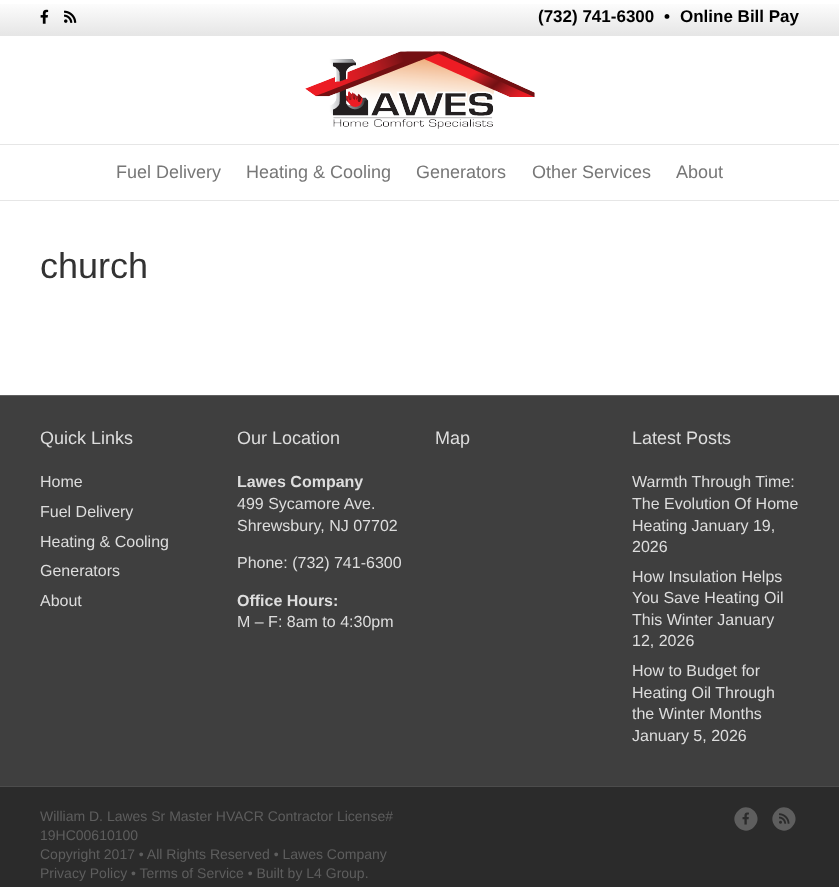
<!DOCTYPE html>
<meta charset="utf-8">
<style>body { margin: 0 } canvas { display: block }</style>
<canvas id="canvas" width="839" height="887"></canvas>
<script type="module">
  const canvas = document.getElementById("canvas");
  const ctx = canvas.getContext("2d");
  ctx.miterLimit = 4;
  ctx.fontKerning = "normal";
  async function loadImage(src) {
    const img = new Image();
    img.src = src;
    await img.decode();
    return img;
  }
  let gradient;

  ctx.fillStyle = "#ffffff";
  ctx.fillRect(0, 0, 839, 887);
  gradient = ctx.createLinearGradient(420, 0, 420, 35);
  gradient.addColorStop(0, "#ffffff");
  gradient.addColorStop(1, "#e6e6e6");
  ctx.fillStyle = gradient;
  ctx.fillRect(0, 4, 839, 31);
  ctx.fillStyle = "#e6e6e6";
  ctx.fillRect(0, 35, 839, 1);
  ctx.drawImage(await loadImage("img1.png"), 40, 9, 9, 15);
  ctx.drawImage(await loadImage("img2.png"), 64, 10, 13, 13);
  ctx.font = "bold 17px Liberation Sans";
  ctx.fillStyle = "#000000";
  ctx.fillText("(732) 741-6300", 538, 22);
  ctx.fillText("•", 664, 22);
  ctx.fillText("Online Bill Pay", 680, 22);
  ctx.drawImage(await loadImage("img3.png"), 305, 51, 230, 78);
  ctx.fillStyle = "#e6e6e6";
  ctx.fillRect(0, 144, 839, 1);
  ctx.fillRect(0, 200, 839, 1);
  ctx.font = "18px Liberation Sans";
  ctx.fillStyle = "#777777";
  ctx.fillText("Fuel Delivery", 116, 178);
  ctx.fillText("Heating & Cooling", 246, 178);
  ctx.fillText("Generators", 416, 178);
  ctx.fillText("Other Services", 532, 178);
  ctx.fillText("About", 676, 178);
  ctx.font = "36px Liberation Sans";
  ctx.fillStyle = "#333333";
  ctx.fillText("church", 40, 278);
  ctx.fillStyle = "#3f3f3f";
  ctx.fillRect(0, 396, 839, 390);
  ctx.fillStyle = "#606060";
  ctx.fillRect(0, 395, 839, 1);
  ctx.font = "18px Liberation Sans";
  ctx.fillStyle = "#dddddd";
  ctx.fillText("Quick Links", 40, 444);
  ctx.font = "16px Liberation Sans";
  ctx.fillText("Home", 40, 487);
  ctx.fillText("Fuel Delivery", 40, 517);
  ctx.fillText("Heating & Cooling", 40, 547);
  ctx.fillText("Generators", 40, 576);
  ctx.fillText("About", 40, 606);
  ctx.font = "18px Liberation Sans";
  ctx.fillText("Our Location", 237, 444);
  ctx.font = "bold 16px Liberation Sans";
  ctx.fillText("Lawes Company", 237, 487);
  ctx.font = "16px Liberation Sans";
  ctx.fillText("499 Sycamore Ave.", 237, 509);
  ctx.fillText("Shrewsbury, NJ 07702", 237, 531);
  ctx.fillText("Phone: (732) 741-6300", 237, 568);
  ctx.font = "bold 16px Liberation Sans";
  ctx.fillText("Office Hours:", 237, 606);
  ctx.font = "16px Liberation Sans";
  ctx.fillText("M – F: 8am to 4:30pm", 237, 627);
  ctx.font = "18px Liberation Sans";
  ctx.fillText("Map", 435, 444);
  ctx.fillText("Latest Posts", 632, 444);
  ctx.font = "16px Liberation Sans";
  ctx.fillText("Warmth Through Time:", 632, 487);
  ctx.fillText("The Evolution Of Home", 632, 509);
  ctx.fillText("Heating January 19,", 632, 531);
  ctx.fillText("2026", 632, 552);
  ctx.fillText("How Insulation Helps", 632, 582);
  ctx.fillText("You Save Heating Oil", 632, 603);
  ctx.fillText("This Winter January", 632, 625);
  ctx.fillText("12, 2026", 632, 646);
  ctx.fillText("How to Budget for", 632, 676);
  ctx.fillText("Heating Oil Through", 632, 698);
  ctx.fillText("the Winter Months", 632, 719);
  ctx.fillText("January 5, 2026", 632, 741);
  ctx.fillStyle = "#2b2b2b";
  ctx.fillRect(0, 787, 839, 100);
  ctx.fillStyle = "#4c4c4c";
  ctx.fillRect(0, 786, 839, 1);
  ctx.font = "14px Liberation Sans";
  ctx.fillStyle = "#5e5e5e";
  ctx.fillText("William D. Lawes Sr Master HVACR Contractor License#", 40, 821);
  ctx.fillText("19HC00610100", 40, 840);
  ctx.fillText("Copyright 2017 • All Rights Reserved • Lawes Company", 40, 859);
  ctx.fillText("Privacy Policy • Terms of Service • Built by L4 Group.", 40, 878);
  ctx.beginPath();
  ctx.moveTo(738, 811);
  ctx.bezierCurveTo(748.5, 800, 765, 816.5, 754, 827);
  ctx.bezierCurveTo(743.5, 838, 727, 821.5, 738, 811);
  ctx.closePath();
  ctx.fill();
  ctx.drawImage(await loadImage("img4.png"), 742, 812, 7, 13);
  ctx.beginPath();
  ctx.moveTo(776, 811);
  ctx.bezierCurveTo(786.5, 800, 803, 816.5, 792, 827);
  ctx.bezierCurveTo(781.5, 838, 765, 821.5, 776, 811);
  ctx.closePath();
  ctx.fill();
  ctx.drawImage(await loadImage("img5.png"), 779, 813, 11, 11);
</script>
